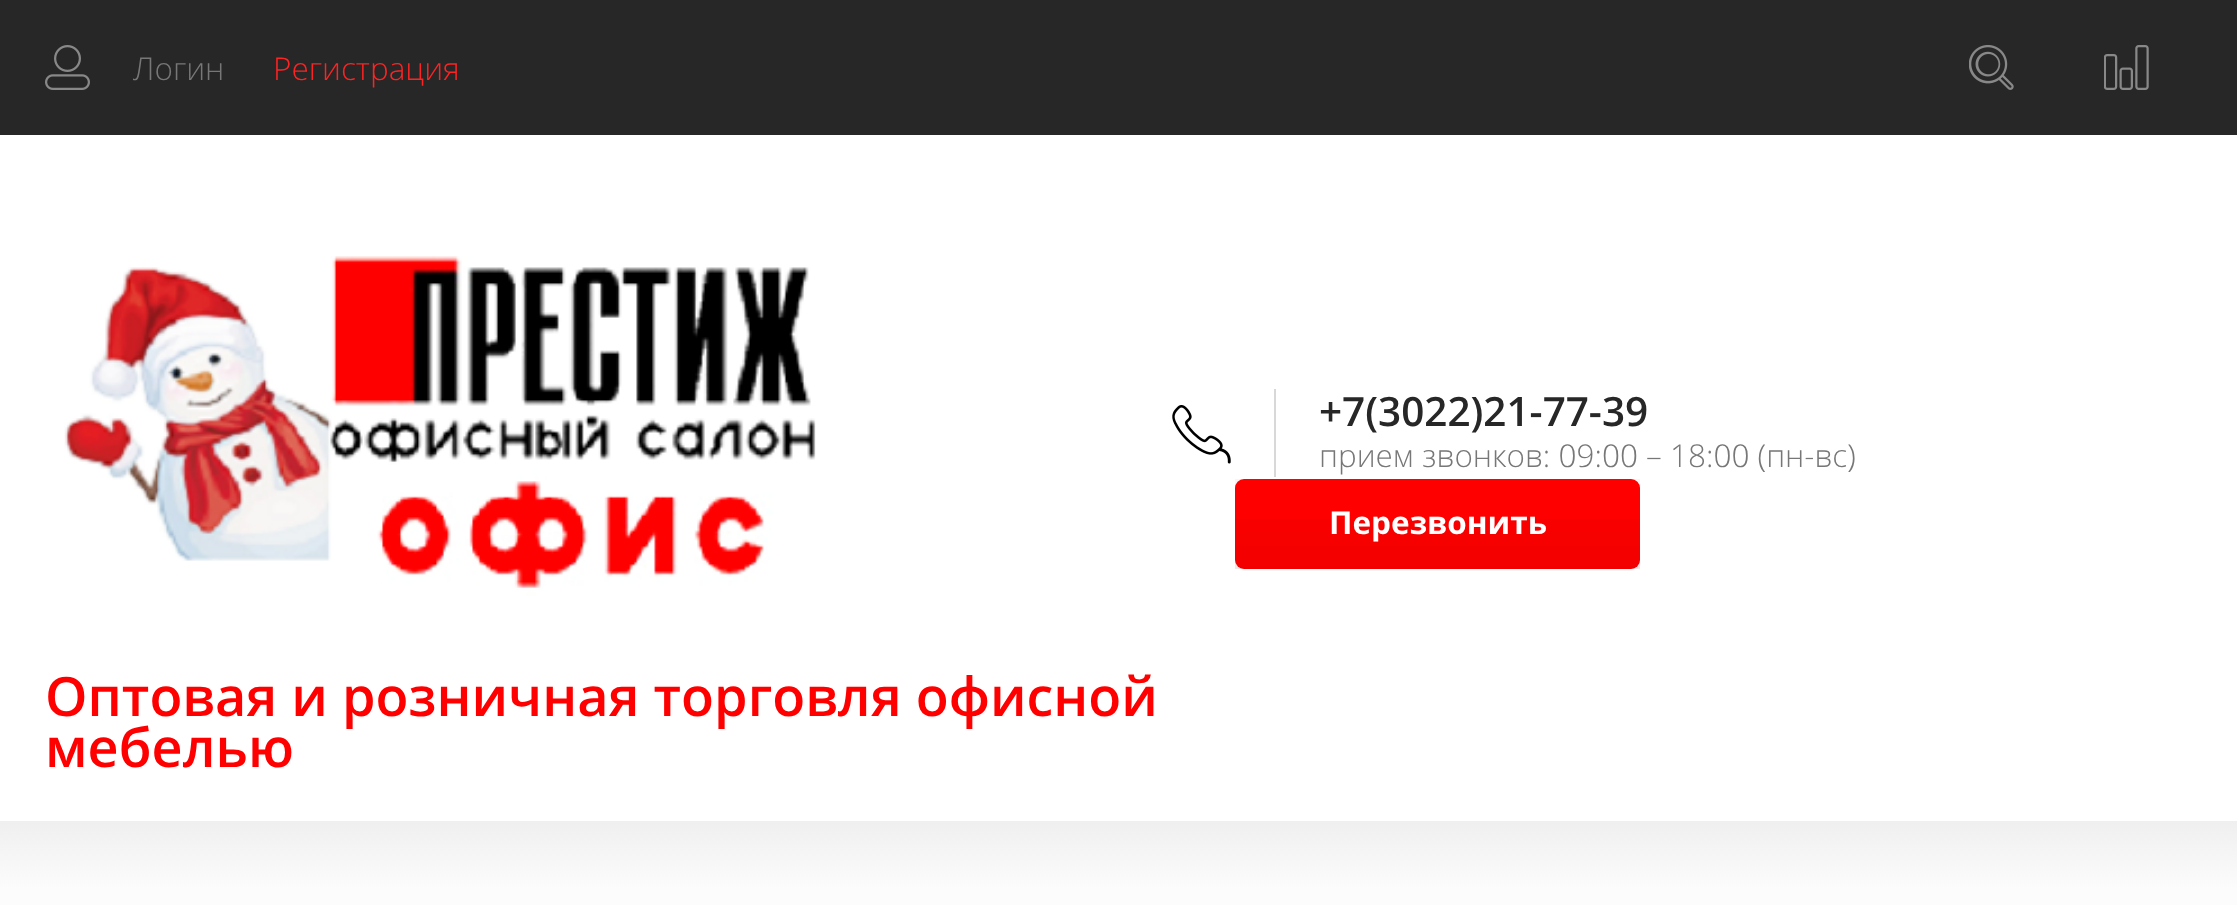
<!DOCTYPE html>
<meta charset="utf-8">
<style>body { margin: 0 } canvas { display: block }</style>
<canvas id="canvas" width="2237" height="905"></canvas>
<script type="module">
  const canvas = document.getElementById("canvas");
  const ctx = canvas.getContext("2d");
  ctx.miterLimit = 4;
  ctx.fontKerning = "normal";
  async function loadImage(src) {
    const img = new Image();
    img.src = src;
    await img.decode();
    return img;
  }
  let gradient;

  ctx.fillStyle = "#ffffff";
  ctx.fillRect(0, 0, 2237, 905);
  ctx.fillStyle = "#272727";
  ctx.fillRect(0, 0, 2237, 135);
  ctx.drawImage(await loadImage("img1.png"), 45, 45, 45, 45);
  ctx.font = "300 31.5px Open Sans";
  ctx.fillStyle = "#777777";
  ctx.fillText("Логин", 133, 80);
  ctx.fillStyle = "#ff2323";
  ctx.fillText("Регистрация", 273, 80);
  ctx.drawImage(await loadImage("img2.png"), 1969, 45, 45, 45);
  ctx.drawImage(await loadImage("img3.png"), 2104, 45, 45, 45);
  ctx.drawImage(await loadImage("img4.png"), 1172, 405, 59, 59);
  ctx.fillStyle = "#d8d8d8";
  ctx.fillRect(1274, 389, 2, 88);
  ctx.font = "600 40.5px Open Sans";
  ctx.fillStyle = "#272727";
  ctx.fillText("+7(3022)21-77-39", 1319, 426);
  ctx.font = "300 31.5px Open Sans";
  ctx.fillStyle = "#777777";
  ctx.fillText("прием звонков: 09:00 – 18:00 (пн-вс)", 1319, 467);
  ctx.fillStyle = "#ff0000";
  ctx.beginPath();
  ctx.roundRect(1235, 479, 405, 90, 9);
  ctx.fill();
  ctx.fillStyle = "rgba(255, 0, 0, 0.05)";
  ctx.fillRect(1235, 479, 405, 90);
  gradient = ctx.createLinearGradient(1438, 479, 1438, 569);
  gradient.addColorStop(0.02, "rgba(0, 0, 0, 0)");
  gradient.addColorStop(1, "rgba(0, 0, 0, 0.05)");
  ctx.fillStyle = gradient;
  ctx.fillRect(1235, 519, 405, 50);
  ctx.font = "bold 31.5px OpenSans";
  ctx.fillStyle = "#ffffff";
  ctx.fillText("Перезвонить", 1329, 534);
  ctx.drawImage(await loadImage("img5.png"), 64, 256, 752, 340);
  ctx.font = "600 54px Open Sans";
  ctx.fillStyle = "#ff0000";
  ctx.fillText("Оптовая и розничная торговля офисной", 45, 716);
  ctx.fillText("мебелью", 45, 767);
  gradient = ctx.createLinearGradient(1119, 821, 1119, 889);
  gradient.addColorStop(0, "#efefef");
  gradient.addColorStop(1, "#fcfcfc");
  ctx.fillStyle = gradient;
  ctx.fillRect(0, 821, 2237, 68);
  ctx.fillStyle = "#fcfcfc";
  ctx.fillRect(0, 889, 2237, 16);
</script>
